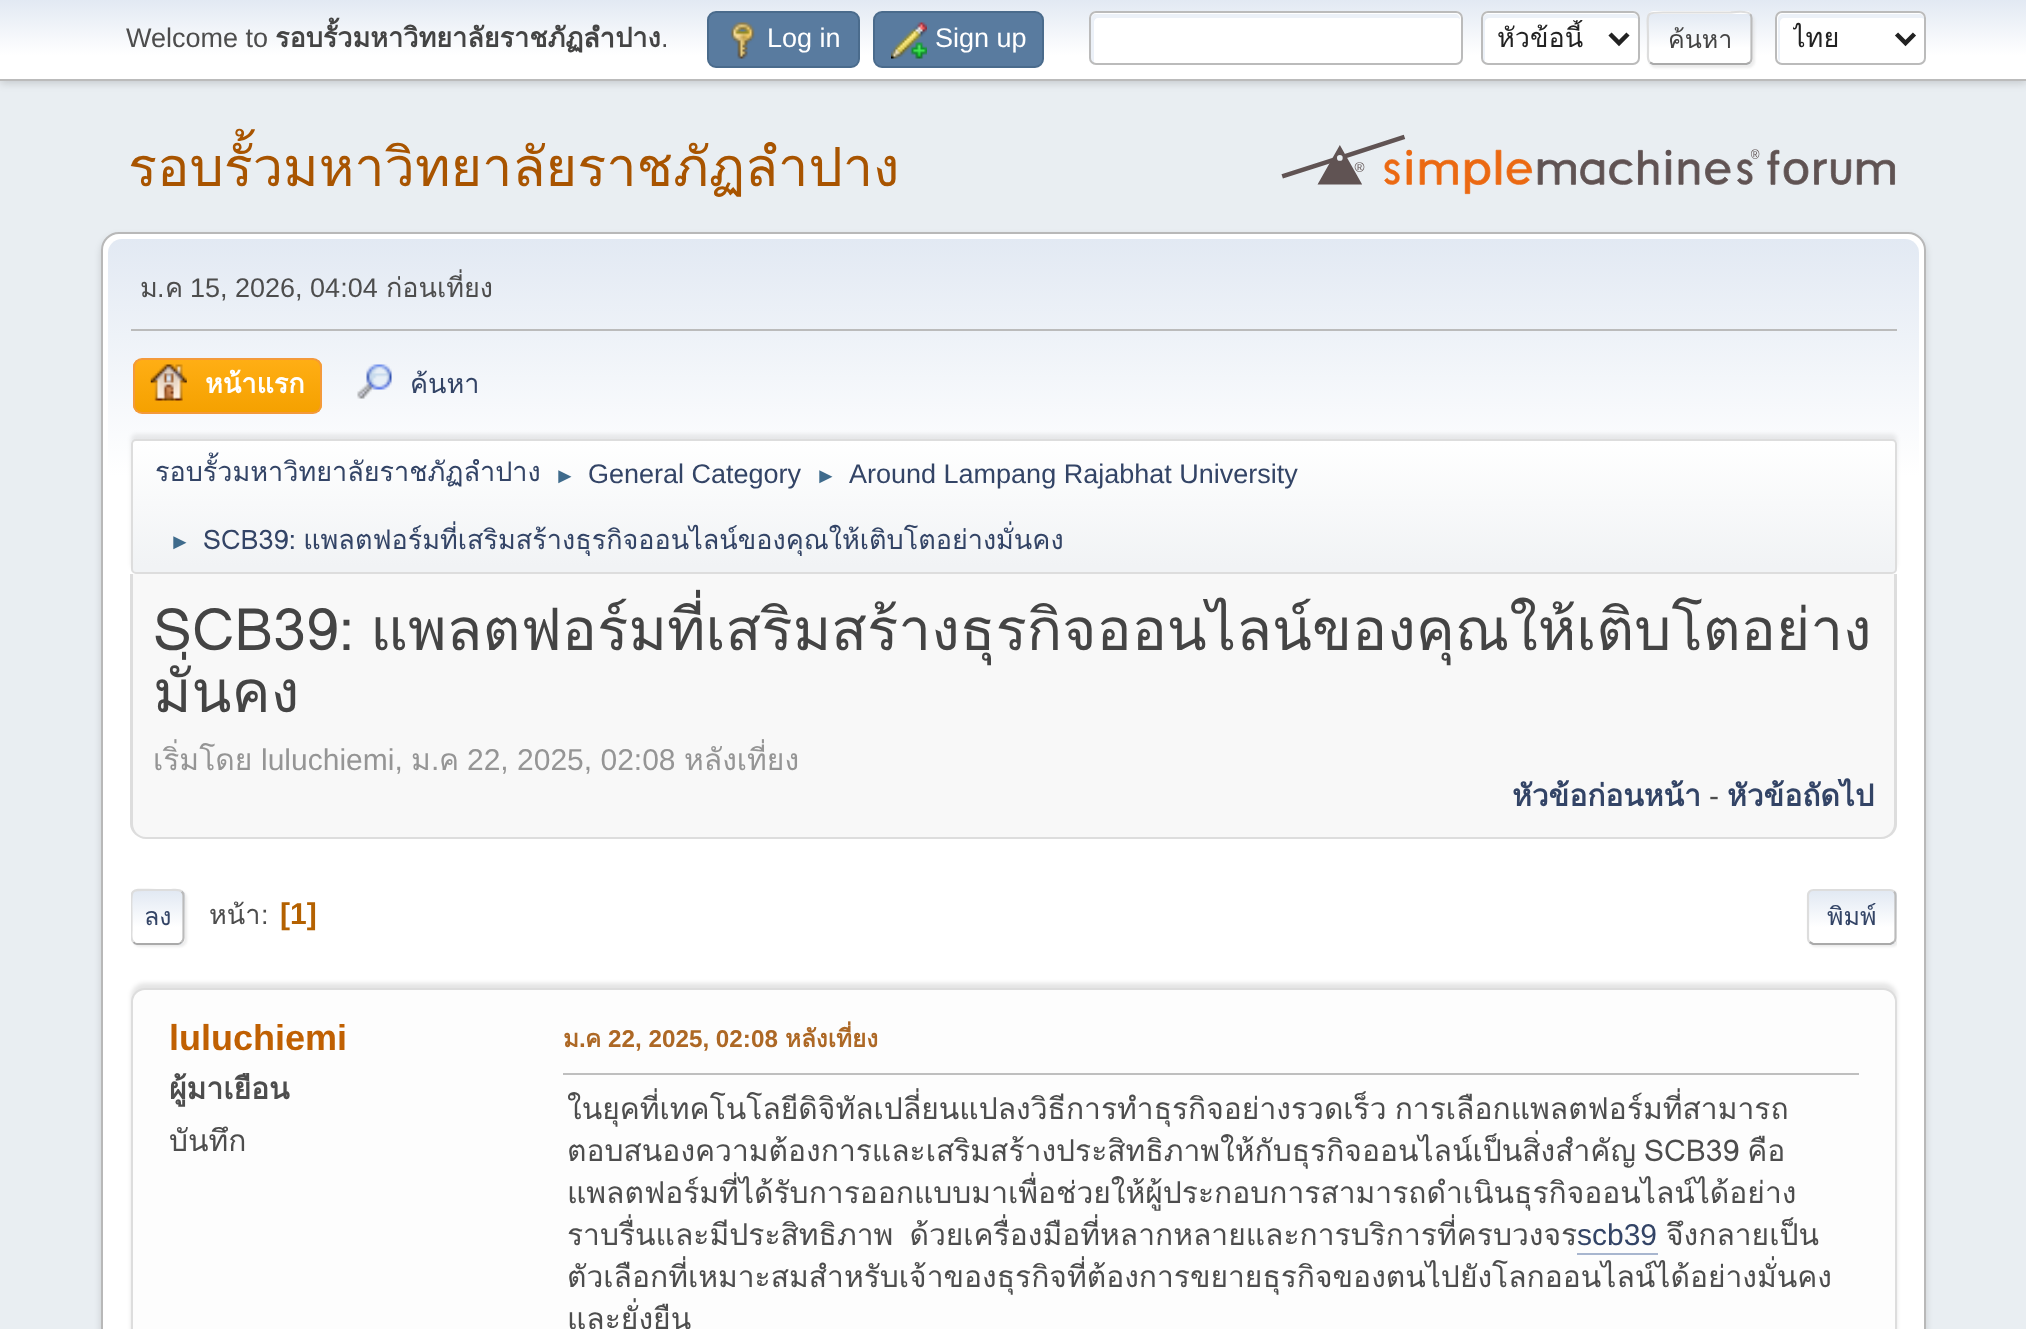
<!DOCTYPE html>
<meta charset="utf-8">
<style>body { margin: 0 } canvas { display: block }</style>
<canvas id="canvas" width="2026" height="1329"></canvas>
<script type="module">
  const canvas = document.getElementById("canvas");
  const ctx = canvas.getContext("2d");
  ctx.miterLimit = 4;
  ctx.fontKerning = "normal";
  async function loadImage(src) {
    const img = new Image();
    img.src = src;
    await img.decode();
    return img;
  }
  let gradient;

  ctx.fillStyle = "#e9eef2";
  ctx.fillRect(0, 0, 2026, 1329);
  ctx.fillStyle = "rgba(0, 0, 0, 0.16)";
  ctx.filter = "blur(4.5px)";
  ctx.beginPath();
  ctx.rect(0, 2, 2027, 81);
  ctx.fill();
  ctx.filter = "none";
  gradient = ctx.createLinearGradient(1014, 0, 1014, 79);
  gradient.addColorStop(0, "#e2e9f3");
  gradient.addColorStop(0.7, "#ffffff");
  ctx.fillStyle = gradient;
  ctx.fillRect(0, 0, 2026, 79);
  ctx.fillStyle = "#bbbbbb";
  ctx.fillRect(0, 79, 2026, 2);
  ctx.font = "27px Liberation Sans";
  ctx.fillStyle = "#4d4d4d";
  ctx.fillText("Welcome to", 126, 47);
  ctx.font = "bold 27px Loma";
  ctx.fillStyle = "#444444";
  ctx.fillText("รอบรั้วมหาวิทยาลัยราชภัฏลำปาง", 275, 47);
  ctx.font = "27px Liberation Sans";
  ctx.fillStyle = "#4d4d4d";
  ctx.fillText(".", 661, 47);
  ctx.fillStyle = "#597b9f";
  ctx.beginPath();
  ctx.roundRect(708, 12, 151, 55, 8);
  ctx.fill();
  ctx.strokeStyle = "#4a6b8c";
  ctx.lineWidth = 2;
  ctx.stroke();
  ctx.drawImage(await loadImage("img1.png"), 730, 22, 25, 37);
  ctx.fillStyle = "#ffffff";
  ctx.fillText("Log in", 767, 47);
  ctx.fillStyle = "#597b9f";
  ctx.beginPath();
  ctx.roundRect(874, 12, 169, 55, 8);
  ctx.fill();
  ctx.stroke();
  ctx.drawImage(await loadImage("img2.png"), 891, 22, 36, 37);
  ctx.fillStyle = "#ffffff";
  ctx.fillText("Sign up", 935, 47);
  ctx.beginPath();
  ctx.roundRect(1089, 11, 374, 54, 7);
  ctx.fill();
  ctx.fillStyle = "#ecf1f8";
  ctx.beginPath();
  ctx.moveTo(1098, 18);
  ctx.lineTo(1458, 18);
  ctx.lineTo(1460, 19);
  ctx.bezierCurveTo(1460, 16, 1458, 14, 1455, 14);
  ctx.lineTo(1096, 14);
  ctx.bezierCurveTo(1093, 14, 1091, 16, 1091, 19);
  ctx.lineTo(1091, 58);
  ctx.bezierCurveTo(1091, 60, 1092, 62, 1094, 63);
  ctx.lineTo(1094, 22);
  ctx.bezierCurveTo(1094, 20, 1096, 18, 1098, 18);
  ctx.closePath();
  ctx.fill();
  ctx.beginPath();
  ctx.roundRect(1090, 12, 372, 52, 6);
  ctx.strokeStyle = "#bbbbbb";
  ctx.stroke();
  ctx.fillStyle = "#ffffff";
  ctx.beginPath();
  ctx.roundRect(1481, 11, 159, 54, 7);
  ctx.fill();
  ctx.fillStyle = "#ecf1f8";
  ctx.beginPath();
  ctx.moveTo(1490, 18);
  ctx.lineTo(1636, 18);
  ctx.lineTo(1638, 19);
  ctx.bezierCurveTo(1638, 16, 1636, 14, 1633, 14);
  ctx.lineTo(1488, 14);
  ctx.bezierCurveTo(1485, 14, 1483, 16, 1483, 19);
  ctx.lineTo(1483, 58);
  ctx.bezierCurveTo(1483, 60, 1484, 61, 1485, 62);
  ctx.lineTo(1485, 22);
  ctx.bezierCurveTo(1485, 20, 1487, 18, 1490, 18);
  ctx.closePath();
  ctx.fill();
  ctx.beginPath();
  ctx.roundRect(1482, 12, 157, 52, 6);
  ctx.stroke();
  ctx.beginPath();
  ctx.moveTo(1610, 34);
  ctx.lineTo(1619, 43);
  ctx.lineTo(1628, 34);
  ctx.strokeStyle = "#222222";
  ctx.lineWidth = 4.5;
  ctx.stroke();
  ctx.save();
  ctx.beginPath();
  ctx.rect(1496, 20, 99, 36);
  ctx.clip();
  ctx.font = "27px Loma";
  ctx.fillStyle = "#222222";
  ctx.fillText("หัวข้อนี้", 1497, 47);
  ctx.restore();
  ctx.fillStyle = "rgba(221, 221, 221, 0.57)";
  ctx.filter = "blur(1px)";
  ctx.beginPath();
  ctx.roundRect(1649, 14, 106, 54, 7);
  ctx.fill();
  ctx.filter = "none";
  ctx.save();
  ctx.beginPath();
  ctx.roundRect(1647, 11, 106, 54, 7);
  ctx.clip();
  gradient = ctx.createLinearGradient(1700, -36, 1700, 14);
  gradient.addColorStop(0, "#e2e9f3");
  gradient.addColorStop(0.7, "#ffffff");
  ctx.fillStyle = gradient;
  ctx.fillRect(1647, 11, 106, 3);
  gradient = ctx.createLinearGradient(1700, 13, 1700, 63);
  gradient.addColorStop(0, "#e2e9f3");
  gradient.addColorStop(0.7, "#ffffff");
  ctx.fillStyle = gradient;
  ctx.fillRect(1647, 14, 106, 49);
  gradient = ctx.createLinearGradient(1700, 63, 1700, 113);
  gradient.addColorStop(0, "#e2e9f3");
  gradient.addColorStop(0.7, "#ffffff");
  ctx.fillStyle = gradient;
  ctx.fillRect(1647, 63, 106, 2);
  ctx.restore();
  ctx.beginPath();
  ctx.moveTo(1750, 14);
  ctx.bezierCurveTo(1751, 15, 1751.5, 16.5, 1751.5, 18);
  ctx.lineTo(1751.5, 58.5);
  ctx.bezierCurveTo(1751.5, 60, 1751, 61.5, 1750, 62.5);
  ctx.strokeStyle = "#bbbbbb";
  ctx.lineWidth = 2.2;
  ctx.stroke();
  ctx.beginPath();
  ctx.moveTo(1750, 62.5);
  ctx.lineTo(1746.5, 64);
  ctx.lineTo(1653, 64);
  ctx.lineTo(1650, 62.5);
  ctx.strokeStyle = "#aaaaaa";
  ctx.stroke();
  ctx.beginPath();
  ctx.moveTo(1650, 62.5);
  ctx.bezierCurveTo(1647, 60, 1648, 55, 1648, 52);
  ctx.lineTo(1648, 38);
  ctx.bezierCurveTo(1648, 10.5, 1643, 12.5, 1669, 12.5);
  ctx.lineTo(1730.5, 12.5);
  ctx.bezierCurveTo(1731, 12.5, 1746, 10, 1750, 14);
  ctx.strokeStyle = "#dddddd";
  ctx.stroke();
  ctx.font = "25px Loma";
  ctx.fillStyle = "#444444";
  ctx.fillText("ค้นหา", 1668, 48);
  ctx.fillStyle = "#ffffff";
  ctx.beginPath();
  ctx.roundRect(1775, 11, 151, 54, 7);
  ctx.fill();
  ctx.fillStyle = "#ecf1f8";
  ctx.beginPath();
  ctx.moveTo(1784, 18);
  ctx.lineTo(1922, 18);
  ctx.lineTo(1924, 19);
  ctx.bezierCurveTo(1924, 16, 1922, 14, 1919, 14);
  ctx.lineTo(1783, 14);
  ctx.bezierCurveTo(1780, 14, 1778, 16, 1778, 19);
  ctx.lineTo(1778, 58);
  ctx.bezierCurveTo(1778, 60, 1779, 61, 1780, 62);
  ctx.lineTo(1780, 22);
  ctx.bezierCurveTo(1780, 20, 1782, 18, 1784, 18);
  ctx.closePath();
  ctx.fill();
  ctx.beginPath();
  ctx.roundRect(1776, 12, 149, 52, 6);
  ctx.strokeStyle = "#bbbbbb";
  ctx.lineWidth = 2;
  ctx.stroke();
  ctx.beginPath();
  ctx.moveTo(1896.5, 34);
  ctx.lineTo(1905.5, 43);
  ctx.lineTo(1914.5, 34);
  ctx.strokeStyle = "#222222";
  ctx.lineWidth = 4.5;
  ctx.stroke();
  ctx.save();
  ctx.beginPath();
  ctx.rect(1793, 20, 90, 36);
  ctx.clip();
  ctx.font = "27px Loma";
  ctx.fillStyle = "#222222";
  ctx.fillText("ไทย", 1792, 47);
  ctx.restore();
  ctx.font = "54px Loma";
  ctx.fillStyle = "#a85400";
  ctx.fillText("รอบรั้วมหาวิทยาลัยราชภัฏลำปาง", 128, 186);
  ctx.drawImage(await loadImage("img3.png"), 1281, 134, 615, 61);
  ctx.fillStyle = "rgba(0, 0, 0, 0.14)";
  ctx.filter = "blur(3.5px)";
  ctx.beginPath();
  ctx.roundRect(101, 236, 1825, 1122, 18);
  ctx.fill();
  ctx.filter = "none";
  ctx.fillStyle = "#ffffff";
  ctx.beginPath();
  ctx.roundRect(102, 233, 1823, 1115, 17);
  ctx.fill();
  ctx.strokeStyle = "#b8b8b8";
  ctx.lineWidth = 2;
  ctx.stroke();
  gradient = ctx.createLinearGradient(1014, 238, 1014, 578);
  gradient.addColorStop(0, "#e2e9f3");
  gradient.addColorStop(0.7, "#ffffff");
  ctx.fillStyle = gradient;
  ctx.beginPath();
  ctx.roundRect(108, 239, 1811, 339, [14, 14, 0, 0]);
  ctx.fill();
  ctx.fillStyle = "#bbbbbb";
  ctx.fillRect(131, 329, 1766, 2);
  ctx.font = "27px Loma";
  ctx.fillStyle = "#4d4d4d";
  ctx.fillText("ม", 140, 297);
  ctx.font = "27px Liberation Sans";
  ctx.fillText(".", 157, 297);
  ctx.font = "27px Loma";
  ctx.fillText("ค", 165, 297);
  ctx.font = "27px Liberation Sans";
  ctx.fillText("15, 2026, 04:04", 190, 297);
  ctx.font = "27px Loma";
  ctx.fillText("ก่อนเที่ยง", 386, 297);
  ctx.save();
  ctx.beginPath();
  ctx.roundRect(133, 358, 189, 56, 9);
  ctx.clip();
  gradient = ctx.createLinearGradient(227, 360, 227, 412);
  gradient.addColorStop(0, "#ffae14");
  gradient.addColorStop(1, "#f5a100");
  ctx.fillStyle = gradient;
  ctx.fillRect(133, 360, 189, 52);
  ctx.restore();
  ctx.beginPath();
  ctx.roundRect(134, 359, 187, 54, 8);
  ctx.strokeStyle = "#f49a3a";
  ctx.stroke();
  ctx.drawImage(await loadImage("img4.png"), 150, 364, 37, 37);
  ctx.font = "bold 27px Loma";
  ctx.fillStyle = "#ffffff";
  ctx.fillText("หน้าแรก", 205, 393);
  ctx.drawImage(await loadImage("img5.png"), 357, 364, 35, 35);
  ctx.font = "27px Loma";
  ctx.fillStyle = "#334466";
  ctx.fillText("ค้นหา", 410, 393);
  ctx.fillStyle = "rgba(0, 0, 0, 0.08)";
  ctx.filter = "blur(2px)";
  ctx.beginPath();
  ctx.roundRect(131, 434, 1766, 135, 5);
  ctx.fill();
  ctx.filter = "none";
  ctx.save();
  ctx.beginPath();
  ctx.roundRect(131, 439, 1766, 135, 5);
  ctx.clip();
  gradient = ctx.createLinearGradient(1014, 441, 1014, 572);
  gradient.addColorStop(0, "#ffffff");
  gradient.addColorStop(0.95, "#f1f3f5");
  ctx.fillStyle = gradient;
  ctx.fillRect(131, 441, 1766, 131);
  ctx.restore();
  ctx.beginPath();
  ctx.roundRect(132, 440, 1764, 133, 4);
  ctx.strokeStyle = "#dddddd";
  ctx.stroke();
  ctx.fillStyle = "#334466";
  ctx.fillText("รอบรั้วมหาวิทยาลัยราชภัฏลำปาง", 155, 481);
  ctx.font = "22px Liberation Sans";
  ctx.fillStyle = "#3f6b8c";
  ctx.fillText("►", 554, 483);
  ctx.font = "27px Liberation Sans";
  ctx.fillStyle = "#334466";
  ctx.fillText("General Category", 588, 483);
  ctx.font = "22px Liberation Sans";
  ctx.fillStyle = "#3f6b8c";
  ctx.fillText("►", 815, 483);
  ctx.font = "27px Liberation Sans";
  ctx.fillStyle = "#334466";
  ctx.fillText("Around Lampang Rajabhat University", 849, 483);
  ctx.font = "22px Liberation Sans";
  ctx.fillStyle = "#3f6b8c";
  ctx.fillText("►", 169, 549);
  ctx.wordSpacing = "-2px";
  ctx.font = "27px Loma";
  ctx.fillStyle = "#334466";
  ctx.fillText("SCB39: แพลตฟอร์มที่เสริมสร้างธุรกิจออนไลน์ของคุณให้เติบโตอย่างมั่นคง", 203, 549);
  ctx.fillStyle = "#f8f8f8";
  ctx.beginPath();
  ctx.roundRect(131, 574, 1766, 265, [0, 0, 16, 16]);
  ctx.fill();
  ctx.fillStyle = "#dddddd";
  ctx.beginPath();
  ctx.moveTo(130, 574);
  ctx.lineTo(1897, 574);
  ctx.lineTo(1897, 824);
  ctx.bezierCurveTo(1897, 832, 1890, 839, 1881, 839);
  ctx.lineTo(146, 839);
  ctx.bezierCurveTo(138, 839, 130, 832, 130, 824);
  ctx.closePath();
  ctx.moveTo(133, 574);
  ctx.lineTo(1894, 574);
  ctx.lineTo(1894, 824);
  ctx.bezierCurveTo(1894, 831, 1888, 837, 1881, 837);
  ctx.lineTo(146, 837);
  ctx.bezierCurveTo(139, 837, 133, 831, 133, 824);
  ctx.closePath();
  ctx.fill("evenodd");
  ctx.wordSpacing = "-4px";
  ctx.font = "58.5px Loma";
  ctx.fillStyle = "#444444";
  ctx.fillText("SCB39: แพลตฟอร์มที่เสริมสร้างธุรกิจออนไลน์ของคุณให้เติบโตอย่าง", 153, 650);
  ctx.save();
  ctx.beginPath();
  ctx.roundRect(133, 574, 1762, 263, [0, 0, 14, 14]);
  ctx.clip();
  ctx.wordSpacing = "0px";
  ctx.fillText("มั่นคง", 153, 712);
  ctx.restore();
  ctx.wordSpacing = "0px";
  ctx.font = "30px Loma";
  ctx.fillStyle = "#959595";
  ctx.fillText("เริ่มโดย", 153, 770);
  ctx.font = "30px Liberation Sans";
  ctx.fillText("luluchiemi,", 261, 770);
  ctx.font = "30px Loma";
  ctx.fillText("ม", 411, 770);
  ctx.font = "30px Liberation Sans";
  ctx.fillText(".", 431, 770);
  ctx.font = "30px Loma";
  ctx.fillText("ค", 439, 770);
  ctx.font = "30px Liberation Sans";
  ctx.fillText("22, 2025, 02:08", 467, 770);
  ctx.font = "30px Loma";
  ctx.fillText("หลังเที่ยง", 684, 770);
  ctx.font = "bold 30px Loma";
  ctx.fillStyle = "#334466";
  ctx.fillText("หัวข้อก่อนหน้า", 1512, 806);
  ctx.font = "30px Liberation Sans";
  ctx.fillStyle = "#4d4d4d";
  ctx.fillText("-", 1709, 806);
  ctx.font = "bold 30px Loma";
  ctx.fillStyle = "#334466";
  ctx.fillText("หัวข้อถัดไป", 1727, 806);
  ctx.fillStyle = "rgba(221, 221, 221, 0.57)";
  ctx.filter = "blur(1px)";
  ctx.beginPath();
  ctx.roundRect(133, 891, 54, 56, 7);
  ctx.fill();
  ctx.filter = "none";
  ctx.save();
  ctx.beginPath();
  ctx.roundRect(131, 889, 54, 56, 7);
  ctx.clip();
  gradient = ctx.createLinearGradient(158, 891, 158, 943);
  gradient.addColorStop(0, "#e2e9f3");
  gradient.addColorStop(0.7, "#ffffff");
  ctx.fillStyle = gradient;
  ctx.fillRect(131, 891, 54, 52);
  gradient = ctx.createLinearGradient(158, 943, 158, 995);
  gradient.addColorStop(0, "#e2e9f3");
  gradient.addColorStop(0.7, "#ffffff");
  ctx.fillStyle = gradient;
  ctx.fillRect(131, 943, 54, 2);
  ctx.restore();
  ctx.beginPath();
  ctx.moveTo(181.5, 891.5);
  ctx.bezierCurveTo(183, 892.5, 183.5, 894, 183.5, 895.5);
  ctx.lineTo(183.5, 938);
  ctx.bezierCurveTo(183.5, 939.5, 183, 941, 181.5, 942);
  ctx.strokeStyle = "#bbbbbb";
  ctx.lineWidth = 2.2;
  ctx.stroke();
  ctx.beginPath();
  ctx.moveTo(181.5, 942);
  ctx.bezierCurveTo(180.5, 943.5, 179, 944, 178, 944);
  ctx.lineTo(137, 944);
  ctx.bezierCurveTo(136, 944, 134.5, 943.5, 133.5, 942);
  ctx.strokeStyle = "#aaaaaa";
  ctx.stroke();
  ctx.save();
  ctx.beginPath();
  ctx.rect(131, 873, 1766, 88);
  ctx.clip();
  ctx.beginPath();
  ctx.moveTo(133.5, 942);
  ctx.bezierCurveTo(130.5, 939.5, 131.5, 934, 131.5, 931);
  ctx.lineTo(131.5, 917);
  ctx.bezierCurveTo(131.5, 885.5, 127, 890, 157.5, 890);
  ctx.lineTo(171, 890);
  ctx.bezierCurveTo(174, 890, 179, 889, 181.5, 891.5);
  ctx.strokeStyle = "#dddddd";
  ctx.stroke();
  ctx.restore();
  ctx.font = "25px Loma";
  ctx.fillStyle = "#334466";
  ctx.fillText("ลง", 144, 925);
  ctx.font = "27px Loma";
  ctx.fillStyle = "#4d4d4d";
  ctx.fillText("หน้า", 209, 924);
  ctx.font = "27px Liberation Sans";
  ctx.fillText(":", 261, 924);
  ctx.font = "bold 30px Liberation Sans";
  ctx.fillStyle = "#b46100";
  ctx.fillText("[1]", 280, 924);
  ctx.save();
  ctx.beginPath();
  ctx.rect(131, 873, 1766, 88);
  ctx.clip();
  ctx.fillStyle = "rgba(221, 221, 221, 0.57)";
  ctx.filter = "blur(1px)";
  ctx.beginPath();
  ctx.roundRect(1809, 891, 90, 56, 7);
  ctx.fill();
  ctx.filter = "none";
  ctx.restore();
  ctx.save();
  ctx.beginPath();
  ctx.roundRect(1807, 889, 90, 56, 7);
  ctx.clip();
  gradient = ctx.createLinearGradient(1852, 891, 1852, 943);
  gradient.addColorStop(0, "#e2e9f3");
  gradient.addColorStop(0.7, "#ffffff");
  ctx.fillStyle = gradient;
  ctx.fillRect(1807, 891, 90, 52);
  gradient = ctx.createLinearGradient(1852, 943, 1852, 995);
  gradient.addColorStop(0, "#e2e9f3");
  gradient.addColorStop(0.7, "#ffffff");
  ctx.fillStyle = gradient;
  ctx.fillRect(1807, 943, 90, 2);
  ctx.restore();
  ctx.beginPath();
  ctx.moveTo(1894, 891.5);
  ctx.bezierCurveTo(1895, 892.5, 1895.5, 894, 1895.5, 895.5);
  ctx.lineTo(1895.5, 938);
  ctx.bezierCurveTo(1895.5, 939.5, 1895, 941, 1894, 942);
  ctx.strokeStyle = "#bbbbbb";
  ctx.stroke();
  ctx.beginPath();
  ctx.moveTo(1894, 942);
  ctx.lineTo(1890.5, 944);
  ctx.lineTo(1813, 944);
  ctx.lineTo(1809.5, 942);
  ctx.strokeStyle = "#aaaaaa";
  ctx.stroke();
  ctx.beginPath();
  ctx.moveTo(1809.5, 942);
  ctx.bezierCurveTo(1808.5, 941, 1808, 939.5, 1808, 938);
  ctx.lineTo(1808, 895.5);
  ctx.bezierCurveTo(1808, 894, 1808.5, 892.5, 1809.5, 891.5);
  ctx.bezierCurveTo(1810.5, 890.5, 1812, 890, 1813.5, 890);
  ctx.lineTo(1890, 890);
  ctx.bezierCurveTo(1891.5, 890, 1893, 890.5, 1894, 891.5);
  ctx.strokeStyle = "#dddddd";
  ctx.stroke();
  ctx.font = "25px Loma";
  ctx.fillStyle = "#334466";
  ctx.fillText("พิมพ์", 1827, 925);
  ctx.fillStyle = "rgba(0, 0, 0, 0.1)";
  ctx.filter = "blur(2px)";
  ctx.beginPath();
  ctx.roundRect(131, 983, 1766, 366, 14);
  ctx.fill();
  ctx.filter = "none";
  ctx.fillStyle = "#fdfdfd";
  ctx.beginPath();
  ctx.roundRect(132, 989, 1764, 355, 13);
  ctx.fill();
  ctx.lineWidth = 2;
  ctx.stroke();
  ctx.font = "bold 36px Liberation Sans";
  ctx.fillStyle = "#c06002";
  ctx.fillText("luluchiemi", 169, 1050);
  ctx.font = "bold 30px Loma";
  ctx.fillStyle = "#4d4d4d";
  ctx.fillText("ผู้มาเยือน", 169, 1099);
  ctx.font = "30px Loma";
  ctx.fillText("บันทึก", 169, 1151);
  ctx.font = "bold 24.25px Loma";
  ctx.fillStyle = "#ad6825";
  ctx.fillText("ม", 563, 1047);
  ctx.font = "bold 24.25px Liberation Sans";
  ctx.fillText(".", 579, 1047);
  ctx.font = "bold 24.25px Loma";
  ctx.fillText("ค", 585, 1047);
  ctx.font = "bold 24.25px Liberation Sans";
  ctx.fillText("22, 2025, 02:08", 608, 1047);
  ctx.font = "bold 24.25px Loma";
  ctx.fillText("หลังเที่ยง", 785, 1047);
  ctx.fillStyle = "#bfbfbf";
  ctx.fillRect(563, 1073, 1296, 2);
  ctx.wordSpacing = "-2px";
  ctx.font = "30px Loma";
  ctx.fillStyle = "#4d4d4d";
  ctx.fillText("ในยุคที่เทคโนโลยีดิจิทัลเปลี่ยนแปลงวิธีการทำธุรกิจอย่างรวดเร็ว การเลือกแพลตฟอร์มที่สามารถ", 567, 1119);
  ctx.fillText("ตอบสนองความต้องการและเสริมสร้างประสิทธิภาพให้กับธุรกิจออนไลน์เป็นสิ่งสำคัญ SCB39 คือ", 567, 1161);
  ctx.wordSpacing = "0px";
  ctx.fillText("แพลตฟอร์มที่ได้รับการออกแบบมาเพื่อช่วยให้ผู้ประกอบการสามารถดำเนินธุรกิจออนไลน์ได้อย่าง", 567, 1203);
  ctx.wordSpacing = "6px";
  ctx.fillText("ราบรื่นและมีประสิทธิภาพ ด้วยเครื่องมือที่หลากหลายและการบริการที่ครบวงจร", 567, 1245);
  ctx.wordSpacing = "0px";
  ctx.font = "30px Liberation Sans";
  ctx.fillStyle = "#334466";
  ctx.fillText("scb39", 1577, 1245);
  ctx.fillStyle = "#a8b6cf";
  ctx.fillRect(1577, 1253, 81, 2);
  ctx.font = "30px Loma";
  ctx.fillStyle = "#4d4d4d";
  ctx.fillText("จึงกลายเป็น", 1666, 1245);
  ctx.save();
  ctx.beginPath();
  ctx.rect(563, 1071, 1296, 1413);
  ctx.clip();
  ctx.fillText("ตัวเลือกที่เหมาะสมสำหรับเจ้าของธุรกิจที่ต้องการขยายธุรกิจของตนไปยังโลกออนไลน์ได้อย่างมั่นคง", 567, 1287);
  ctx.restore();
  ctx.fillText("และยั่งยืน", 567, 1329);
</script>
